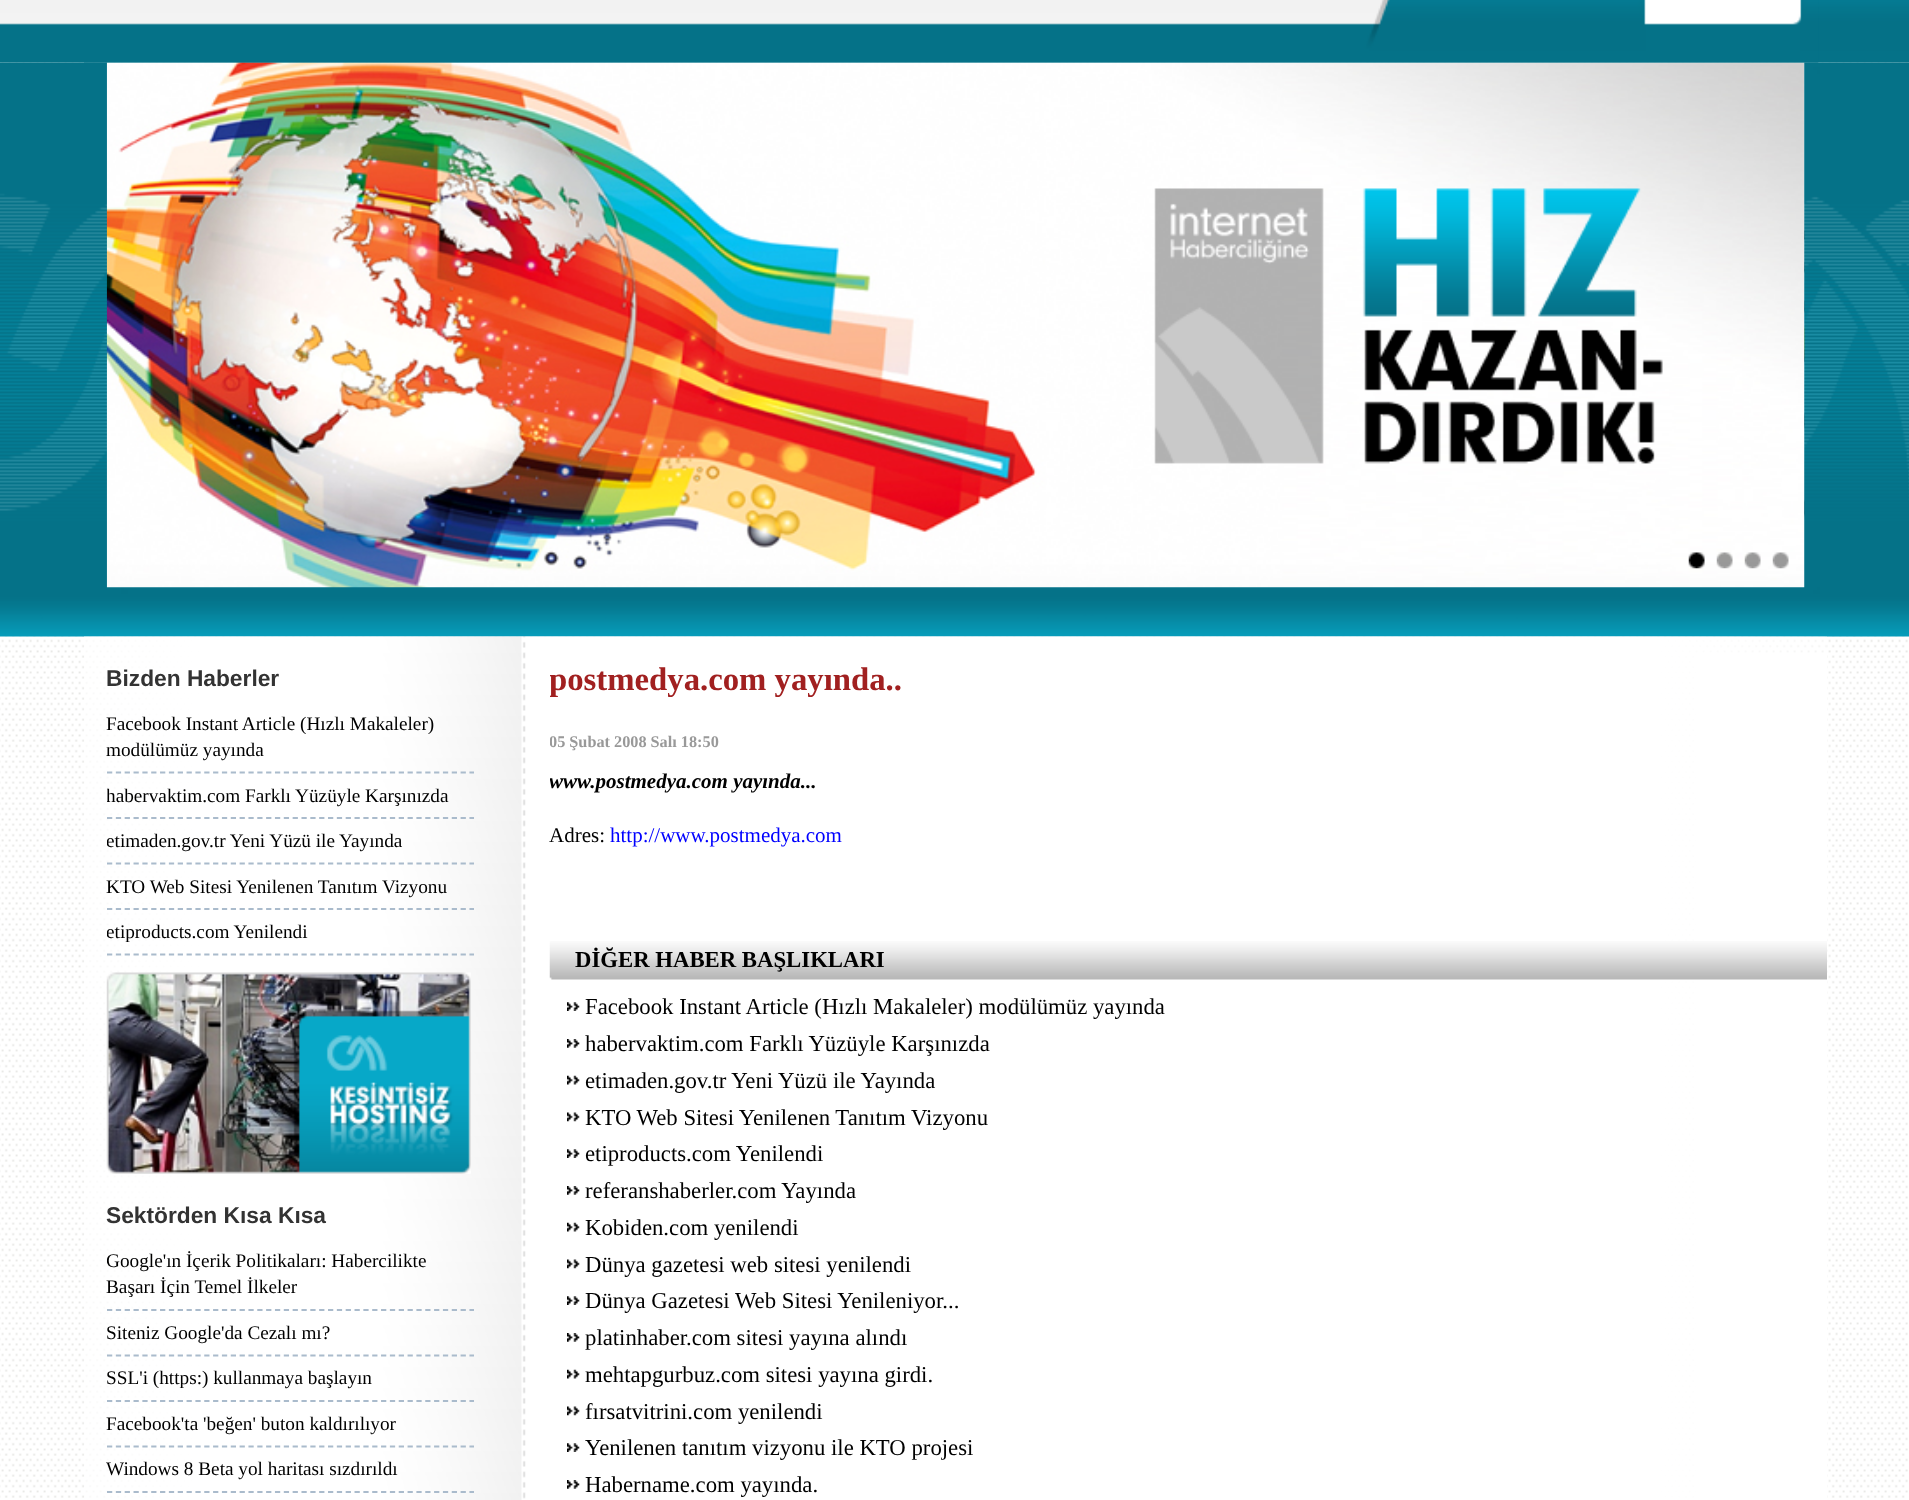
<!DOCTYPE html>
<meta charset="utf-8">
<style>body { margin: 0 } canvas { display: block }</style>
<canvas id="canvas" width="1909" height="1500"></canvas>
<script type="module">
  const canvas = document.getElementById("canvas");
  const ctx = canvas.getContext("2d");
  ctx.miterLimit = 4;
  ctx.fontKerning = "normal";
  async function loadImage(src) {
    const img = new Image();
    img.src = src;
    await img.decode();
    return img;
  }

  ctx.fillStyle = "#ffffff";
  ctx.fillRect(0, 0, 1909, 1500);
  ctx.drawImage(await loadImage("img1.png"), 0, 62, 1908, 1436);
  ctx.drawImage(await loadImage("img2.png"), 0, 0, 1909, 63);
  ctx.drawImage(await loadImage("img4.png"), 0, 62, 1909, 575);
  ctx.drawImage(await loadImage("img3.png"), 84, 0, 1735, 63);
  ctx.drawImage(await loadImage("img5.png"), 106, 62, 1699, 526);
  ctx.drawImage(await loadImage("img6.png"), 1804, 62, 1, 526);
  ctx.drawImage(await loadImage("img7.png"), 1688, 552, 17, 17);
  ctx.drawImage(await loadImage("img8.png"), 1716, 552, 17, 17);
  ctx.drawImage(await loadImage("img9.png"), 1744, 552, 17, 17);
  ctx.drawImage(await loadImage("img10.png"), 1772, 552, 17, 17);
  ctx.drawImage(await loadImage("img11.png"), 84, 636, 1743, 864);
  ctx.font = "bold 22.75px Liberation Sans";
  ctx.fillStyle = "#333333";
  ctx.fillText("Bizden Haberler", 106, 686);
  ctx.beginPath();
  ctx.moveTo(107, 772.5);
  ctx.lineTo(474, 772.5);
  ctx.strokeStyle = "#aabbcc";
  ctx.lineWidth = 1.8;
  ctx.setLineDash([5.25, 3.59]);
  ctx.stroke();
  ctx.font = "19.25px Liberation Serif";
  ctx.fillStyle = "#000000";
  ctx.fillText("Facebook Instant Article (Hızlı Makaleler)", 106, 730);
  ctx.fillText("modülümüz yayında", 106, 756);
  ctx.beginPath();
  ctx.moveTo(107, 818);
  ctx.lineTo(474, 818);
  ctx.stroke();
  ctx.save();
  ctx.beginPath();
  ctx.rect(107, 702, 367, 254);
  ctx.clip();
  ctx.fillText("habervaktim.com Farklı Yüzüyle Karşınızda", 106, 802);
  ctx.restore();
  ctx.beginPath();
  ctx.moveTo(107, 863.5);
  ctx.lineTo(474, 863.5);
  ctx.stroke();
  ctx.save();
  ctx.beginPath();
  ctx.rect(107, 702, 367, 254);
  ctx.clip();
  ctx.fillText("etimaden.gov.tr Yeni Yüzü ile Yayında", 106, 847);
  ctx.restore();
  ctx.beginPath();
  ctx.moveTo(107, 909);
  ctx.lineTo(474, 909);
  ctx.stroke();
  ctx.fillText("KTO Web Sitesi Yenilenen Tanıtım Vizyonu", 106, 893);
  ctx.beginPath();
  ctx.moveTo(107, 954.5);
  ctx.lineTo(474, 954.5);
  ctx.stroke();
  ctx.save();
  ctx.beginPath();
  ctx.rect(107, 702, 367, 254);
  ctx.clip();
  ctx.fillText("etiproducts.com Yenilendi", 106, 938);
  ctx.restore();
  ctx.drawImage(await loadImage("img12.png"), 106, 972, 365, 202);
  ctx.font = "bold 22.75px Liberation Sans";
  ctx.fillStyle = "#333333";
  ctx.fillText("Sektörden Kısa Kısa", 106, 1223);
  ctx.beginPath();
  ctx.moveTo(107, 1310);
  ctx.lineTo(474, 1310);
  ctx.stroke();
  ctx.save();
  ctx.beginPath();
  ctx.rect(107, 1239, 367, 254);
  ctx.clip();
  ctx.font = "19.25px Liberation Serif";
  ctx.fillStyle = "#000000";
  ctx.fillText("Google'ın İçerik Politikaları: Habercilikte", 106, 1267);
  ctx.restore();
  ctx.font = "19.25px Liberation Serif";
  ctx.fillStyle = "#000000";
  ctx.fillText("Başarı İçin Temel İlkeler", 106, 1293);
  ctx.beginPath();
  ctx.moveTo(107, 1355.5);
  ctx.lineTo(474, 1355.5);
  ctx.stroke();
  ctx.fillText("Siteniz Google'da Cezalı mı?", 106, 1339);
  ctx.beginPath();
  ctx.moveTo(107, 1401);
  ctx.lineTo(474, 1401);
  ctx.stroke();
  ctx.fillText("SSL'i (https:) kullanmaya başlayın", 106, 1384);
  ctx.beginPath();
  ctx.moveTo(107, 1446.5);
  ctx.lineTo(474, 1446.5);
  ctx.stroke();
  ctx.fillText("Facebook'ta 'beğen' buton kaldırılıyor", 106, 1430);
  ctx.beginPath();
  ctx.moveTo(107, 1492);
  ctx.lineTo(474, 1492);
  ctx.stroke();
  ctx.fillText("Windows 8 Beta yol haritası sızdırıldı", 106, 1475);
  ctx.fillStyle = "#ffffff";
  ctx.fillRect(1696, 655, 131, 843);
  ctx.save();
  ctx.beginPath();
  ctx.rect(550, 655, 1277, 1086);
  ctx.clip();
  ctx.font = "bold 32.75px Liberation Serif";
  ctx.fillStyle = "#a12020";
  ctx.fillText("postmedya.com yayında..", 549, 690);
  ctx.font = "bold 16.25px Liberation Serif";
  ctx.fillStyle = "#999999";
  ctx.fillText("05 Şubat 2008 Salı 18:50", 549, 747);
  ctx.font = "italic bold 21px Liberation Serif";
  ctx.fillStyle = "#000000";
  ctx.fillText("www.postmedya.com yayında...", 549, 788);
  ctx.restore();
  ctx.font = "21px Liberation Serif";
  ctx.fillStyle = "#000000";
  ctx.fillText("Adres:", 549, 842);
  ctx.fillStyle = "#0000ff";
  ctx.fillText("http://www.postmedya.com", 610, 842);
  ctx.drawImage(await loadImage("img13.png"), 549, 941, 1278, 39);
  ctx.font = "bold 22.75px Liberation Serif";
  ctx.fillStyle = "#000000";
  ctx.fillText("DİĞER HABER BAŞLIKLARI", 575, 967);
  ctx.drawImage(await loadImage("img14.png"), 567, 1002, 13, 9);
  ctx.font = "22.75px Liberation Serif";
  ctx.fillText("Facebook Instant Article (Hızlı Makaleler) modülümüz yayında", 585, 1014);
  ctx.drawImage(await loadImage("img15.png"), 567, 1039, 13, 9);
  ctx.fillText("habervaktim.com Farklı Yüzüyle Karşınızda", 585, 1051);
  ctx.drawImage(await loadImage("img16.png"), 567, 1075, 13, 10);
  ctx.fillText("etimaden.gov.tr Yeni Yüzü ile Yayında", 585, 1088);
  ctx.drawImage(await loadImage("img17.png"), 567, 1112, 13, 10);
  ctx.fillText("KTO Web Sitesi Yenilenen Tanıtım Vizyonu", 585, 1125);
  ctx.drawImage(await loadImage("img14.png"), 567, 1149, 13, 9);
  ctx.fillText("etiproducts.com Yenilendi", 585, 1161);
  ctx.drawImage(await loadImage("img15.png"), 567, 1186, 13, 9);
  ctx.fillText("referanshaberler.com Yayında", 585, 1198);
  ctx.drawImage(await loadImage("img16.png"), 567, 1222, 13, 10);
  ctx.fillText("Kobiden.com yenilendi", 585, 1235);
  ctx.drawImage(await loadImage("img17.png"), 567, 1259, 13, 10);
  ctx.fillText("Dünya gazetesi web sitesi yenilendi", 585, 1272);
  ctx.drawImage(await loadImage("img14.png"), 567, 1296, 13, 9);
  ctx.fillText("Dünya Gazetesi Web Sitesi Yenileniyor...", 585, 1308);
  ctx.drawImage(await loadImage("img15.png"), 567, 1333, 13, 9);
  ctx.fillText("platinhaber.com sitesi yayına alındı", 585, 1345);
  ctx.drawImage(await loadImage("img16.png"), 567, 1369, 13, 10);
  ctx.fillText("mehtapgurbuz.com sitesi yayına girdi.", 585, 1382);
  ctx.drawImage(await loadImage("img17.png"), 567, 1406, 13, 10);
  ctx.fillText("fırsatvitrini.com yenilendi", 585, 1419);
  ctx.drawImage(await loadImage("img14.png"), 567, 1443, 13, 9);
  ctx.fillText("Yenilenen tanıtım vizyonu ile KTO projesi", 585, 1455);
  ctx.drawImage(await loadImage("img15.png"), 567, 1480, 13, 9);
  ctx.fillText("Habername.com yayında.", 585, 1492);
</script>
